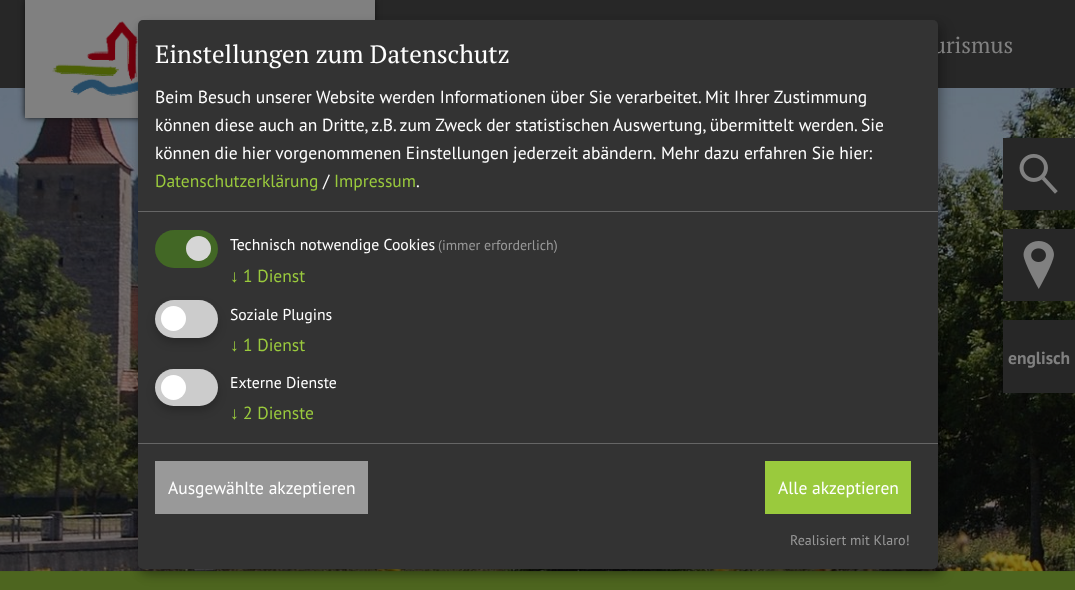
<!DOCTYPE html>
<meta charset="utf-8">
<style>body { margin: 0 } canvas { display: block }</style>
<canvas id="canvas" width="1075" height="590"></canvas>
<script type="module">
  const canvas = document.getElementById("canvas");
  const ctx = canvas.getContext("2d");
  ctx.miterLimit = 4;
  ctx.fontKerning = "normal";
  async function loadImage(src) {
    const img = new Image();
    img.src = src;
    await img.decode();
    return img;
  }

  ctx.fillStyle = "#4d651f";
  ctx.fillRect(0, 0, 1075, 590);
  ctx.fillStyle = "#272727";
  ctx.fillRect(0, 0, 1075, 88);
  ctx.drawImage(await loadImage("img2.png"), 0, 88, 1075, 484);
  ctx.fillStyle = "#111111";
  ctx.filter = "blur(3px)";
  ctx.beginPath();
  ctx.rect(25, 0, 350, 118);
  ctx.fill();
  ctx.filter = "none";
  ctx.fillStyle = "#808080";
  ctx.fillRect(25, 0, 350, 118);
  ctx.drawImage(await loadImage("img1.png"), 52, 21, 86, 75);
  ctx.fillStyle = "rgba(0, 0, 0, 0.19)";
  ctx.filter = "blur(6px)";
  ctx.beginPath();
  ctx.roundRect(144, 26, 800, 549, 5);
  ctx.fill();
  ctx.filter = "none";
  ctx.fillStyle = "rgba(0, 0, 0, 0.2)";
  ctx.filter = "blur(4px)";
  ctx.beginPath();
  ctx.roundRect(138, 25, 800, 549, 5);
  ctx.fill();
  ctx.filter = "none";
  ctx.font = "22.5px PT Serif";
  ctx.fillStyle = "#808080";
  ctx.fillText("urismus", 933, 53);
  ctx.fillStyle = "#333333";
  ctx.beginPath();
  ctx.roundRect(138, 20, 800, 549, 5);
  ctx.fill();
  ctx.fillStyle = "#666666";
  ctx.fillRect(138, 211, 800, 1);
  ctx.font = "25px PT Serif";
  ctx.fillStyle = "#ffffff";
  ctx.fillText("Einstellungen zum Datenschutz", 155, 63);
  ctx.font = "17.5px PT Sans";
  ctx.fillText("Beim Besuch unserer Website werden Informationen über Sie verarbeitet. Mit Ihrer Zustimmung", 155, 103);
  ctx.fillText("können diese auch an Dritte, z.B. zum Zweck der statistischen Auswertung, übermittelt werden. Sie", 155, 131);
  ctx.wordSpacing = "-0.25px";
  ctx.fillText("können die hier vorgenommenen Einstellungen jederzeit abändern.", 155, 159);
  ctx.wordSpacing = "0px";
  ctx.fillText("Mehr dazu erfahren Sie hier:", 661, 159);
  ctx.fillStyle = "#9aca3d";
  ctx.fillText("Datenschutzerklärung", 155, 187);
  ctx.fillStyle = "#ffffff";
  ctx.fillText("/", 323, 187);
  ctx.fillStyle = "#9aca3d";
  ctx.fillText("Impressum", 334, 187);
  ctx.fillStyle = "#ffffff";
  ctx.fillText(".", 416, 187);
  ctx.fillStyle = "#426725";
  ctx.beginPath();
  ctx.roundRect(155, 230, 63, 38, 19);
  ctx.fill();
  ctx.fillStyle = "#d6d6d6";
  ctx.beginPath();
  ctx.arc(198.5, 248.5, 12.5, 0, Math.PI * 2);
  ctx.fill();
  ctx.font = "15.75px PT Sans";
  ctx.fillStyle = "#ffffff";
  ctx.fillText("Technisch notwendige Cookies", 230, 250);
  ctx.font = "14px PT Sans";
  ctx.fillStyle = "#999999";
  ctx.fillText("(immer erforderlich)", 438, 250);
  ctx.font = "17.5px Liberation Sans";
  ctx.fillStyle = "#9aca3d";
  ctx.fillText("↓", 230, 282);
  ctx.font = "17.5px PT Sans";
  ctx.fillText("1 Dienst", 243, 282);
  ctx.fillStyle = "rgba(0, 0, 0, 0.2)";
  ctx.filter = "blur(4px)";
  ctx.beginPath();
  ctx.roundRect(155, 305, 63, 38, 19);
  ctx.fill();
  ctx.filter = "none";
  ctx.fillStyle = "#cccccc";
  ctx.beginPath();
  ctx.roundRect(155, 300, 63, 38, 19);
  ctx.fill();
  ctx.fillStyle = "#ffffff";
  ctx.beginPath();
  ctx.arc(173.5, 318.5, 12.5, 0, Math.PI * 2);
  ctx.fill();
  ctx.font = "15.75px PT Sans";
  ctx.fillText("Soziale Plugins", 230, 320);
  ctx.font = "17.5px Liberation Sans";
  ctx.fillStyle = "#9aca3d";
  ctx.fillText("↓", 230, 351);
  ctx.font = "17.5px PT Sans";
  ctx.fillText("1 Dienst", 243, 351);
  ctx.fillStyle = "rgba(0, 0, 0, 0.2)";
  ctx.filter = "blur(4px)";
  ctx.beginPath();
  ctx.roundRect(155, 374, 63, 37, 18.5);
  ctx.fill();
  ctx.filter = "none";
  ctx.fillStyle = "#cccccc";
  ctx.beginPath();
  ctx.roundRect(155, 369, 63, 37, 18.5);
  ctx.fill();
  ctx.fillStyle = "#ffffff";
  ctx.beginPath();
  ctx.arc(173.5, 387.5, 12.5, 0, Math.PI * 2);
  ctx.fill();
  ctx.font = "15.75px PT Sans";
  ctx.fillText("Externe Dienste", 230, 388);
  ctx.font = "17.5px Liberation Sans";
  ctx.fillStyle = "#9aca3d";
  ctx.fillText("↓", 230, 419);
  ctx.font = "17.5px PT Sans";
  ctx.fillText("2 Dienste", 243, 419);
  ctx.fillStyle = "#666666";
  ctx.fillRect(138, 443, 800, 1);
  ctx.fillStyle = "#999999";
  ctx.fillRect(155, 461, 213, 53);
  ctx.fillStyle = "#ffffff";
  ctx.fillText("Ausgewählte akzeptieren", 168, 494);
  ctx.fillStyle = "#9aca3d";
  ctx.fillRect(765, 461, 146, 53);
  ctx.fillStyle = "#ffffff";
  ctx.fillText("Alle akzeptieren", 778, 494);
  ctx.font = "14px PT Sans";
  ctx.fillStyle = "#999999";
  ctx.fillText("Realisiert mit Klaro!", 790, 545);
  ctx.fillStyle = "#272727";
  ctx.fillRect(1003, 138, 72, 72);
  ctx.drawImage(await loadImage("img3.png"), 1019, 153, 39, 41);
  ctx.fillRect(1003, 229, 72, 72);
  ctx.drawImage(await loadImage("img4.png"), 1023, 241, 31, 48);
  ctx.fillRect(1003, 320, 72, 73);
  ctx.font = "bold 17.5px PT Sans";
  ctx.fillStyle = "#808080";
  ctx.fillText("englisch", 1008, 364);
</script>
